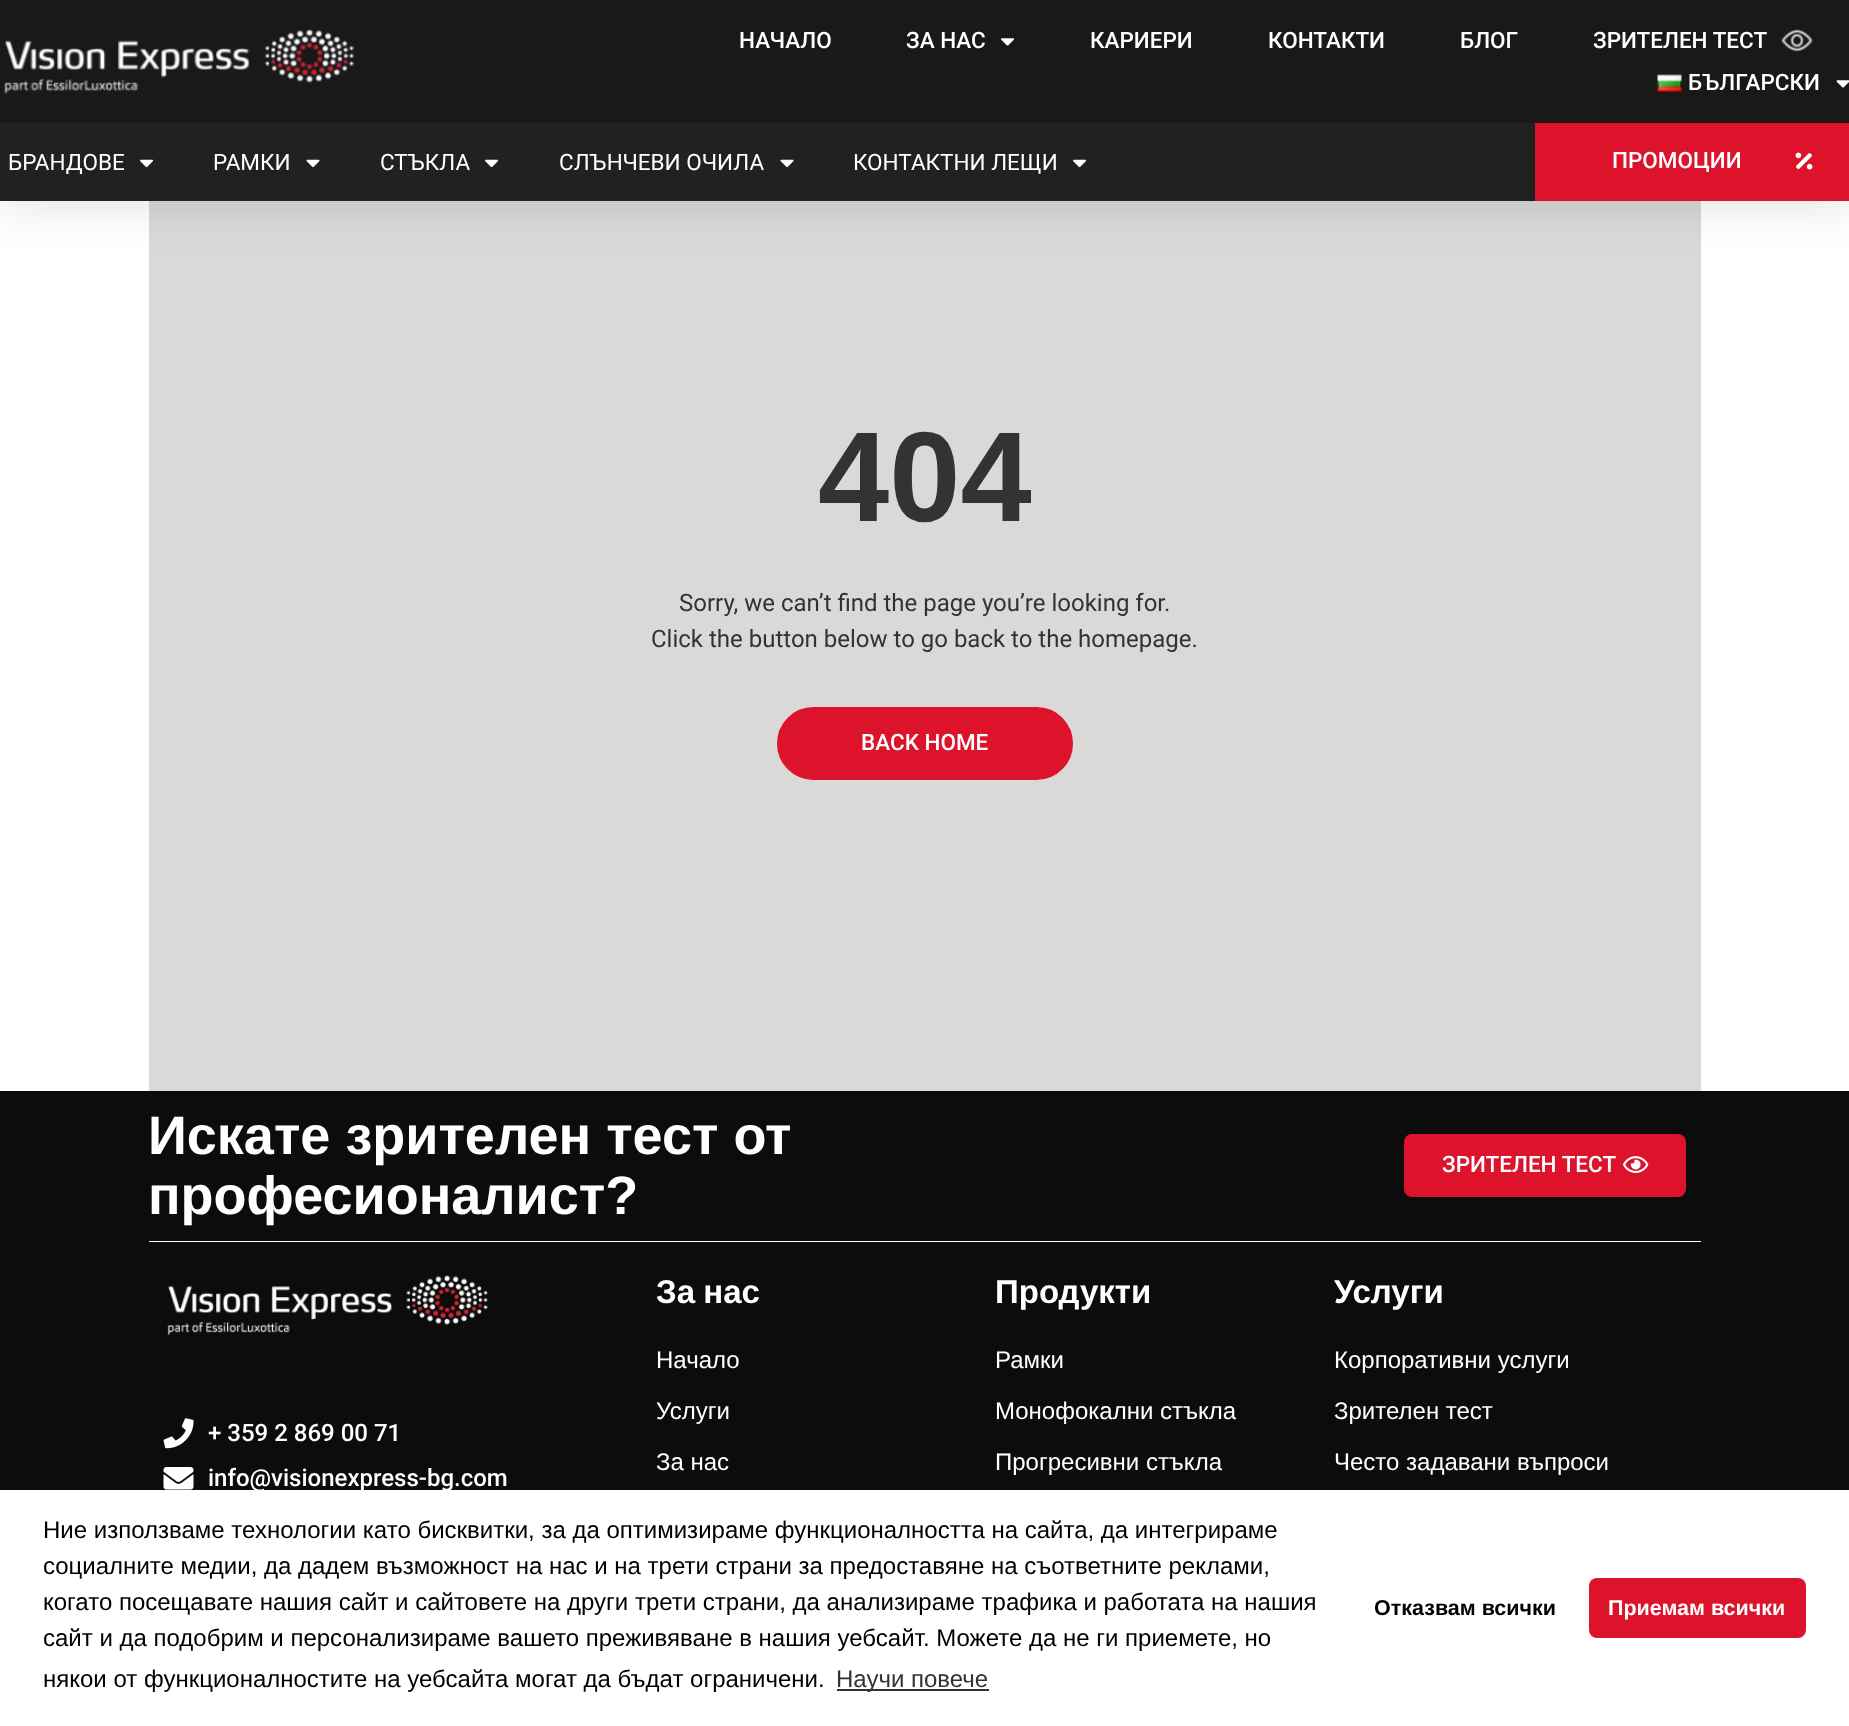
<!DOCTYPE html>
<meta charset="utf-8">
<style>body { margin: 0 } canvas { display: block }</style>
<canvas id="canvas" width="1849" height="1726"></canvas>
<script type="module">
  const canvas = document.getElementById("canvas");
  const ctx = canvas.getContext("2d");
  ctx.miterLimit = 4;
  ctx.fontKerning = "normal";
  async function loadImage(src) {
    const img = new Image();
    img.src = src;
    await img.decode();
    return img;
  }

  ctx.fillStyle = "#ffffff";
  ctx.fillRect(0, 0, 1849, 1726);
  ctx.fillStyle = "#dad9d7";
  ctx.fillRect(149, 201, 1552, 890);
  ctx.fillStyle = "rgba(0, 0, 0, 0.1)";
  ctx.filter = "blur(22.5px)";
  ctx.beginPath();
  ctx.rect(0, 8, 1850, 201);
  ctx.fill();
  ctx.filter = "none";
  ctx.fillStyle = "#1a1819";
  ctx.fillRect(0, 0, 1849, 123);
  ctx.drawImage(await loadImage("img1.png"), 4, 29, 351, 66);
  ctx.font = "500 22.5px Roboto";
  ctx.fillStyle = "#ffffff";
  ctx.fillText("НАЧАЛО", 739, 48);
  ctx.fillText("ЗА НАС", 906, 48);
  ctx.drawImage(await loadImage("img2.png"), 1001, 38, 13, 8);
  ctx.fillText("КАРИЕРИ", 1090, 48);
  ctx.fillText("КОНТАКТИ", 1268, 48);
  ctx.fillText("БЛОГ", 1460, 48);
  ctx.fillText("ЗРИТЕЛЕН ТЕСТ", 1593, 48);
  ctx.drawImage(await loadImage("img3.png"), 1781, 29, 32, 23);
  ctx.drawImage(await loadImage("img4.png"), 1657, 74, 25, 18);
  ctx.fillText("БЪЛГАРСКИ", 1688, 90);
  ctx.drawImage(await loadImage("img5.png"), 1836, 80, 13, 8);
  ctx.fillStyle = "#202222";
  ctx.fillRect(0, 123, 1535, 78);
  ctx.font = "22.5px Roboto";
  ctx.fillStyle = "#ffffff";
  ctx.fillText("БРАНДОВЕ", 8, 170);
  ctx.drawImage(await loadImage("img6.png"), 140, 159, 13, 9);
  ctx.fillText("РАМКИ", 213, 170);
  ctx.drawImage(await loadImage("img7.png"), 306, 159, 14, 9);
  ctx.fillText("СТЪКЛА", 380, 170);
  ctx.drawImage(await loadImage("img6.png"), 485, 159, 13, 9);
  ctx.fillText("СЛЪНЧЕВИ ОЧИЛА", 559, 170);
  ctx.drawImage(await loadImage("img7.png"), 780, 159, 14, 9);
  ctx.fillText("КОНТАКТНИ ЛЕЩИ", 853, 170);
  ctx.drawImage(await loadImage("img6.png"), 1073, 159, 13, 9);
  ctx.fillStyle = "#dc132b";
  ctx.fillRect(1535, 123, 314, 78);
  ctx.font = "500 22.5px Roboto";
  ctx.fillStyle = "#ffffff";
  ctx.fillText("ПРОМОЦИИ", 1612, 168);
  ctx.drawImage(await loadImage("img8.png"), 1795, 152, 18, 18);
  ctx.font = "bold 128px Liberation Sans";
  ctx.fillStyle = "#333333";
  ctx.fillText("404", 818, 521);
  ctx.font = "24px Roboto";
  ctx.fillText("Sorry, we can’t find the page you’re looking for.", 679, 611);
  ctx.fillText("Click the button below to go back to the homepage.", 651, 647);
  ctx.fillStyle = "#dc132b";
  ctx.beginPath();
  ctx.roundRect(778, 708, 294, 71, 35.5);
  ctx.fill();
  ctx.strokeStyle = "#dc132b";
  ctx.lineWidth = 2;
  ctx.stroke();
  ctx.font = "500 22.5px Roboto";
  ctx.fillStyle = "#ffffff";
  ctx.fillText("BACK HOME", 861, 750);
  ctx.fillStyle = "#0c0c0c";
  ctx.fillRect(0, 1091, 1849, 399);
  ctx.font = "bold 54px Liberation Sans";
  ctx.fillStyle = "#ffffff";
  ctx.fillText("Искате зрителен тест от", 148, 1154);
  ctx.fillText("професионалист?", 148, 1214);
  ctx.fillStyle = "#dc132b";
  ctx.beginPath();
  ctx.roundRect(1405, 1135, 280, 61, 7);
  ctx.fill();
  ctx.stroke();
  ctx.font = "500 22.5px Roboto";
  ctx.fillStyle = "#ffffff";
  ctx.fillText("ЗРИТЕЛЕН ТЕСТ", 1442, 1172);
  ctx.drawImage(await loadImage("img9.png"), 1623, 1156, 26, 17);
  ctx.fillRect(149, 1241, 1552, 1);
  ctx.drawImage(await loadImage("img10.png"), 167, 1275, 321, 61);
  ctx.drawImage(await loadImage("img11.png"), 163, 1418, 31, 31);
  ctx.font = "500 24px Roboto";
  ctx.fillText("+ 359 2 869 00 71", 208, 1441);
  ctx.drawImage(await loadImage("img12.png"), 163, 1467, 31, 23);
  ctx.fillText("info@visionexpress-bg.com", 208, 1486);
  ctx.wordSpacing = "-1px";
  ctx.font = "bold 33px Liberation Sans";
  ctx.fillText("За нас", 656, 1303);
  ctx.wordSpacing = "0px";
  ctx.font = "24px Liberation Sans";
  ctx.fillText("Начало", 656, 1368);
  ctx.fillText("Услуги", 656, 1419);
  ctx.fillText("За нас", 656, 1470);
  ctx.font = "bold 33px Liberation Sans";
  ctx.fillText("Продукти", 995, 1303);
  ctx.font = "24px Liberation Sans";
  ctx.fillText("Рамки", 995, 1368);
  ctx.fillText("Монофокални стъкла", 995, 1419);
  ctx.fillText("Прогресивни стъкла", 995, 1470);
  ctx.font = "bold 33px Liberation Sans";
  ctx.fillText("Услуги", 1334, 1303);
  ctx.font = "24px Liberation Sans";
  ctx.fillText("Корпоративни услуги", 1334, 1368);
  ctx.fillText("Зрителен тест", 1334, 1419);
  ctx.fillText("Често задавани въпроси", 1334, 1470);
  ctx.fillStyle = "#000000";
  ctx.fillText("Ние използваме технологии като бисквитки, за да оптимизираме функционалността на сайта, да интегрираме", 43, 1538);
  ctx.fillText("социалните медии, да дадем възможност на нас и на трети страни за предоставяне на съответните реклами,", 43, 1574);
  ctx.fillText("когато посещавате нашия сайт и сайтовете на други трети страни, да анализираме трафика и работата на нашия", 43, 1610);
  ctx.fillText("сайт и да подобрим и персонализираме вашето преживяване в нашия уебсайт. Можете да не ги приемете, но", 43, 1646);
  ctx.fillText("някои от функционалностите на уебсайта могат да бъдат ограничени.", 43, 1687);
  ctx.fillStyle = "#333333";
  ctx.fillRect(837, 1689, 152, 2);
  ctx.fillText("Научи повече", 836, 1687);
  ctx.font = "bold 21.5px Liberation Sans";
  ctx.fillStyle = "#000000";
  ctx.fillText("Отказвам всички", 1374, 1615);
  ctx.fillStyle = "#dc132b";
  ctx.beginPath();
  ctx.roundRect(1589, 1578, 217, 60, 8);
  ctx.fill();
  ctx.fillStyle = "#ffffff";
  ctx.fillText("Приемам всички", 1608, 1615);
</script>
